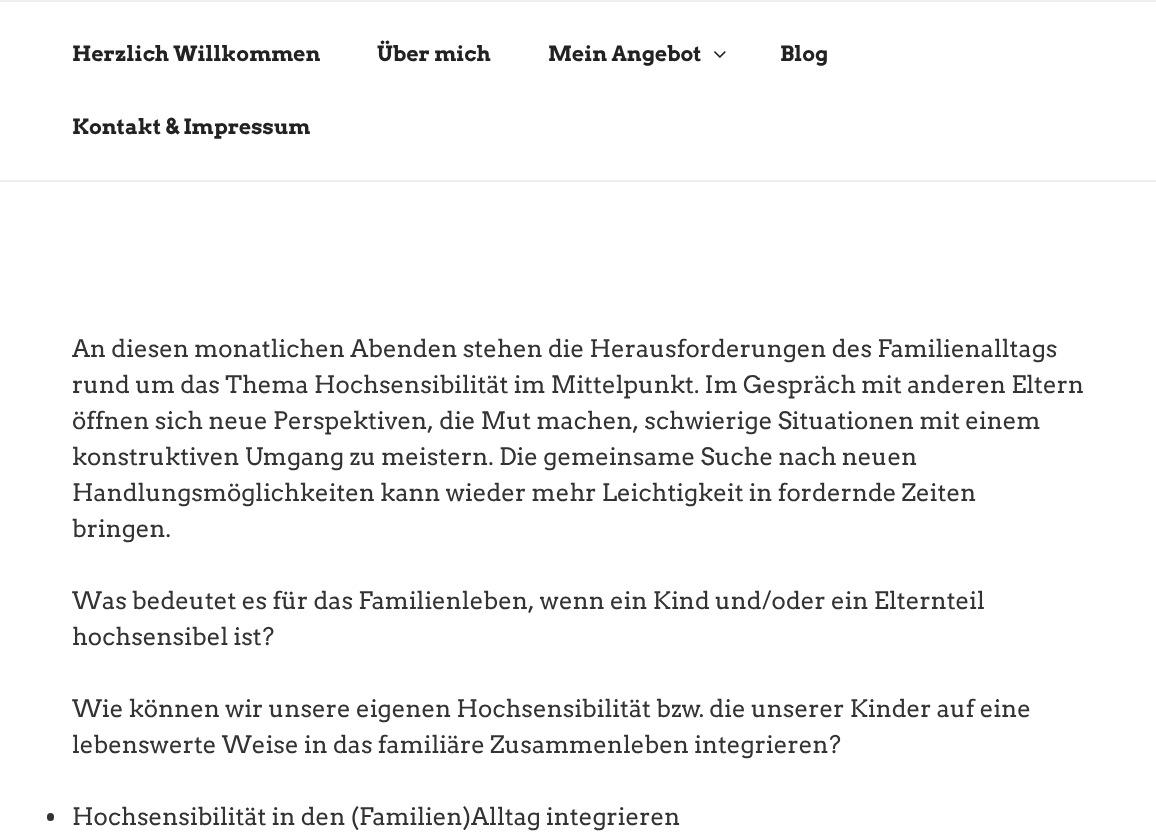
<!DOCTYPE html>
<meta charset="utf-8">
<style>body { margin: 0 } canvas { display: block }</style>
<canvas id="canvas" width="1156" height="838"></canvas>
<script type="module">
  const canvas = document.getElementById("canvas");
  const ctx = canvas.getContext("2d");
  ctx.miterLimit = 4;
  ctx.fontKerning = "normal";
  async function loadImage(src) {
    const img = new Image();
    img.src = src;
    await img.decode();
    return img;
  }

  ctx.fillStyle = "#ffffff";
  ctx.fillRect(0, 0, 1156, 838);
  ctx.fillStyle = "#eeeeee";
  ctx.fillRect(0, 0, 1156, 2);
  ctx.fillRect(0, 180, 1156, 2);
  ctx.font = "bold 21px Arvo";
  ctx.fillStyle = "#222222";
  ctx.fillText("Herzlich Willkommen", 72, 61);
  ctx.fillText("Über mich", 377, 61);
  ctx.fillText("Mein Angebot", 548, 61);
  ctx.drawImage(await loadImage("img1.png"), 714, 51, 12, 7);
  ctx.fillText("Blog", 780, 61);
  ctx.fillText("Kontakt & Impressum", 72, 134);
  ctx.font = "24px Arvo";
  ctx.fillStyle = "#333333";
  ctx.fillText("An diesen monatlichen Abenden stehen die Herausforderungen des Familienalltags", 72, 357);
  ctx.fillText("rund um das Thema Hochsensibilität im Mittelpunkt. Im Gespräch mit anderen Eltern", 72, 393);
  ctx.fillText("öffnen sich neue Perspektiven, die Mut machen, schwierige Situationen mit einem", 72, 429);
  ctx.fillText("konstruktiven Umgang zu meistern. Die gemeinsame Suche nach neuen", 72, 465);
  ctx.fillText("Handlungsmöglichkeiten kann wieder mehr Leichtigkeit in fordernde Zeiten", 72, 501);
  ctx.fillText("bringen.", 72, 537);
  ctx.fillText("Was bedeutet es für das Familienleben, wenn ein Kind und/oder ein Elternteil", 72, 609);
  ctx.fillText("hochsensibel ist?", 72, 645);
  ctx.fillText("Wie können wir unsere eigenen Hochsensibilität bzw. die unserer Kinder auf eine", 72, 717);
  ctx.fillText("lebenswerte Weise in das familiäre Zusammenleben integrieren?", 72, 753);
  ctx.beginPath();
  ctx.roundRect(47, 813, 7, 8, 3.5);
  ctx.fill();
  ctx.fillText("Hochsensibilität in den (Familien)Alltag integrieren", 72, 825);
</script>
